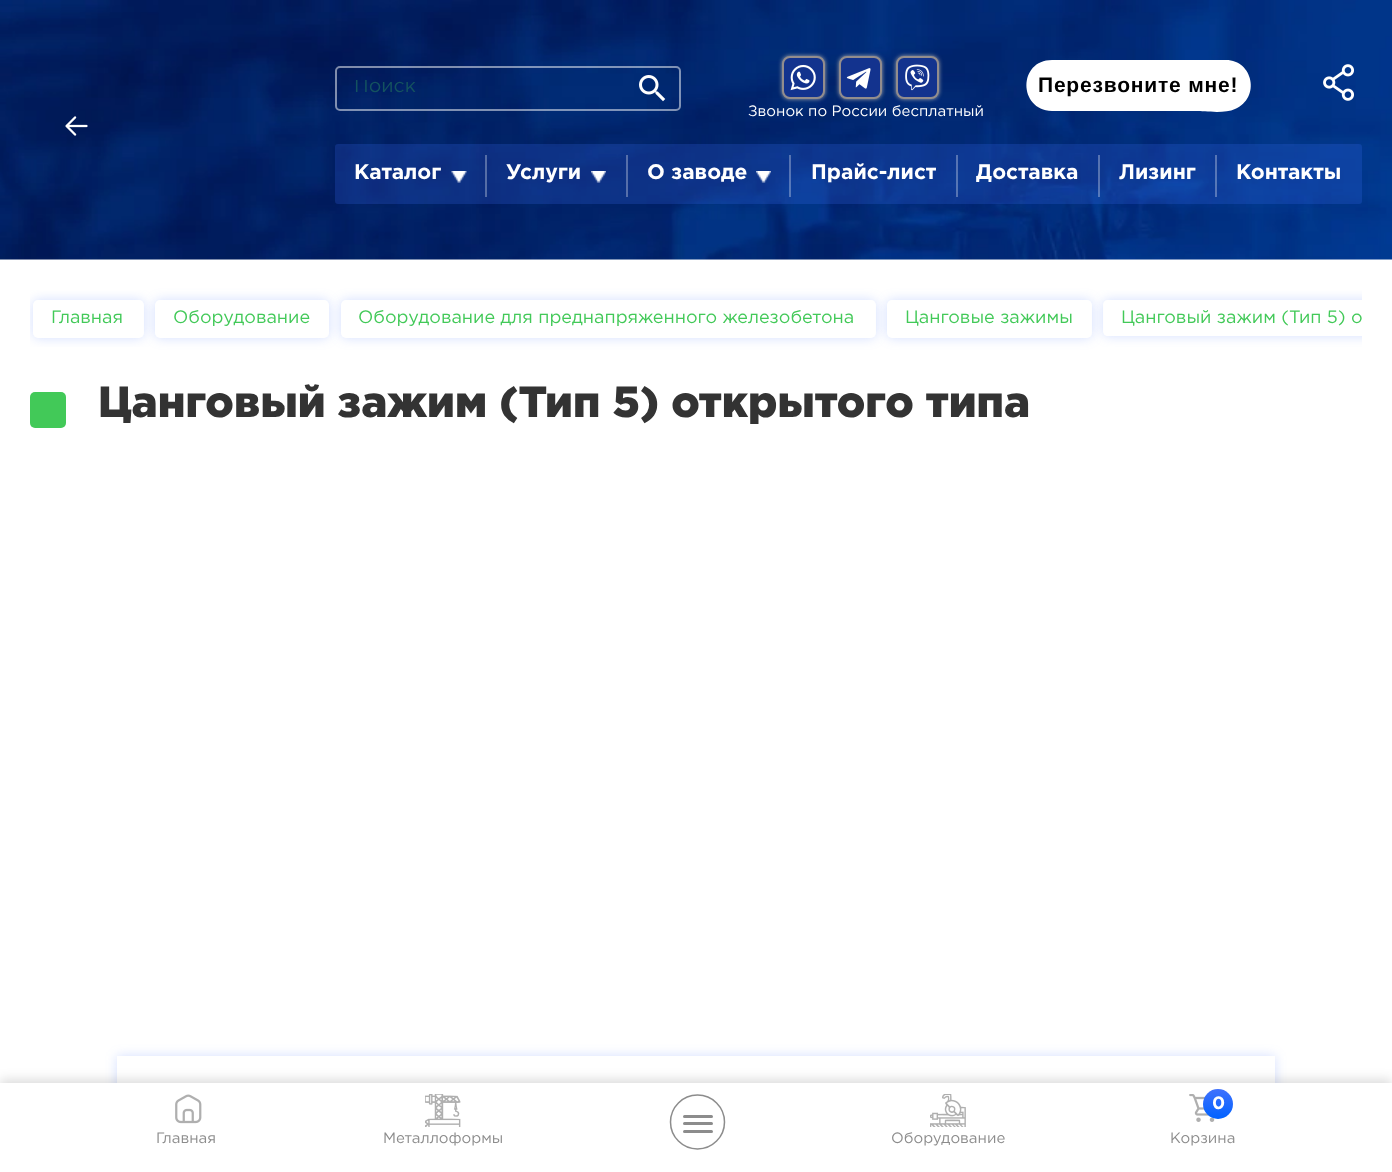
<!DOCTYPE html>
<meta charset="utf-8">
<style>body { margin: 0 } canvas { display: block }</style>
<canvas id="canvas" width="1392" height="1172"></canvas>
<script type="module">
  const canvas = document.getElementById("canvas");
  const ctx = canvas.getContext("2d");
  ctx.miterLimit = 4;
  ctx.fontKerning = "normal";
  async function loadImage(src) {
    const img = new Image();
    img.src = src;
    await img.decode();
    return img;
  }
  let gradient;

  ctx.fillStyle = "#ffffff";
  ctx.fillRect(0, 0, 1392, 1172);
  ctx.drawImage(await loadImage("img1.png"), 0, 0, 1392, 260);
  ctx.drawImage(await loadImage("img2.png"), 65, 116, 23, 20);
  ctx.beginPath();
  ctx.roundRect(336, 67, 344, 43, 4);
  ctx.strokeStyle = "rgba(255, 255, 255, 0.5)";
  ctx.lineWidth = 2;
  ctx.stroke();
  ctx.save();
  ctx.beginPath();
  ctx.rect(354, 80, 263, 18);
  ctx.clip();
  ctx.font = "19.5px Gotham";
  ctx.fillStyle = "#14525f";
  ctx.fillText("Поиск", 354, 92);
  ctx.restore();
  ctx.drawImage(await loadImage("img3.png"), 639, 75, 27, 27);
  ctx.beginPath();
  ctx.moveTo(1052, 60);
  ctx.bezierCurveTo(1018, 60, 1018, 110, 1052, 111);
  ctx.lineTo(1196, 111);
  ctx.bezierCurveTo(1204, 111, 1225, 114, 1235, 109);
  ctx.bezierCurveTo(1261, 98, 1253, 60, 1226, 60);
  ctx.closePath();
  ctx.fill();
  ctx.letterSpacing = "0.8px";
  ctx.font = "bold 21px Liberation Sans";
  ctx.fillStyle = "#000000";
  ctx.fillText("Перезвоните мне!", 1038, 92);
  ctx.drawImage(await loadImage("img4.png"), 1323, 64, 31, 37);
  ctx.fillStyle = "#a8a8a8";
  ctx.filter = "blur(2px)";
  ctx.beginPath();
  ctx.roundRect(782, 56, 43, 43, 8);
  ctx.fill();
  ctx.filter = "none";
  ctx.fillStyle = "#13338e";
  ctx.beginPath();
  ctx.roundRect(783, 57, 41, 41, 7);
  ctx.fill();
  ctx.strokeStyle = "#938d8d";
  ctx.stroke();
  ctx.drawImage(await loadImage("img5.png"), 790, 64, 26, 27);
  ctx.fillStyle = "#a8a8a8";
  ctx.filter = "blur(2px)";
  ctx.beginPath();
  ctx.roundRect(839, 56, 43, 43, 8);
  ctx.fill();
  ctx.filter = "none";
  ctx.fillStyle = "#13338e";
  ctx.beginPath();
  ctx.roundRect(840, 57, 41, 41, 7);
  ctx.fill();
  ctx.stroke();
  ctx.drawImage(await loadImage("img6.png"), 846, 68, 25, 21);
  ctx.fillStyle = "#a8a8a8";
  ctx.filter = "blur(2px)";
  ctx.beginPath();
  ctx.roundRect(896, 56, 43, 43, 8);
  ctx.fill();
  ctx.filter = "none";
  ctx.fillStyle = "#13338e";
  ctx.beginPath();
  ctx.roundRect(897, 57, 41, 41, 7);
  ctx.fill();
  ctx.stroke();
  ctx.drawImage(await loadImage("img7.png"), 905, 64, 25, 27);
  ctx.letterSpacing = "0px";
  ctx.font = "15px Gotham";
  ctx.fillStyle = "#ffffff";
  ctx.fillText("Звонок по России бесплатный", 748, 116);
  ctx.fillStyle = "rgba(64, 113, 253, 0.2)";
  ctx.beginPath();
  ctx.roundRect(335, 144, 1027, 60, 3);
  ctx.fill();
  ctx.font = "bold 21px Gotham";
  ctx.fillStyle = "#ffffff";
  ctx.fillText("Каталог", 354, 179);
  ctx.drawImage(await loadImage("img8.png"), 451, 171, 16, 12);
  ctx.fillStyle = "#556da6";
  ctx.fillRect(485, 155, 2, 42);
  ctx.fillStyle = "#ffffff";
  ctx.fillText("Услуги", 506, 179);
  ctx.drawImage(await loadImage("img9.png"), 591, 171, 15, 12);
  ctx.fillStyle = "#566faa";
  ctx.fillRect(626, 155, 2, 42);
  ctx.fillStyle = "#ffffff";
  ctx.fillText("О заводе", 647, 179);
  ctx.drawImage(await loadImage("img10.png"), 756, 171, 15, 12);
  ctx.fillStyle = "rgba(255, 255, 255, 0.3)";
  ctx.fillRect(789, 155, 2, 42);
  ctx.fillStyle = "#ffffff";
  ctx.fillText("Прайс-лист", 811, 179);
  ctx.fillStyle = "rgba(255, 255, 255, 0.3)";
  ctx.fillRect(956, 155, 2, 42);
  ctx.fillStyle = "#ffffff";
  ctx.fillText("Доставка", 976, 179);
  ctx.fillStyle = "rgba(255, 255, 255, 0.3)";
  ctx.fillRect(1098, 155, 2, 42);
  ctx.fillStyle = "#ffffff";
  ctx.fillText("Лизинг", 1119, 179);
  ctx.fillStyle = "rgba(255, 255, 255, 0.3)";
  ctx.fillRect(1215, 155, 2, 42);
  ctx.fillStyle = "#ffffff";
  ctx.fillText("Контакты", 1236, 179);
  ctx.save();
  ctx.beginPath();
  ctx.rect(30, 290, 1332, 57);
  ctx.clip();
  ctx.fillStyle = "rgba(64, 113, 253, 0.23)";
  ctx.filter = "blur(6px)";
  ctx.beginPath();
  ctx.roundRect(33, 300, 111, 38, 5);
  ctx.fill();
  ctx.filter = "none";
  ctx.restore();
  ctx.beginPath();
  ctx.roundRect(33, 300, 111, 38, 5);
  ctx.fill();
  ctx.font = "18px Gotham";
  ctx.fillStyle = "#42c958";
  ctx.fillText("Главная", 51, 323);
  ctx.fillStyle = "rgba(64, 113, 253, 0.23)";
  ctx.filter = "blur(6px)";
  ctx.beginPath();
  ctx.roundRect(155, 300, 174, 38, 5);
  ctx.fill();
  ctx.filter = "none";
  ctx.fillStyle = "#ffffff";
  ctx.beginPath();
  ctx.roundRect(155, 300, 174, 38, 5);
  ctx.fill();
  ctx.fillStyle = "#42c958";
  ctx.fillText("Оборудование", 173, 323);
  ctx.fillStyle = "rgba(64, 113, 253, 0.23)";
  ctx.filter = "blur(6px)";
  ctx.beginPath();
  ctx.roundRect(341, 300, 535, 38, 5);
  ctx.fill();
  ctx.filter = "none";
  ctx.fillStyle = "#ffffff";
  ctx.beginPath();
  ctx.roundRect(341, 300, 535, 38, 5);
  ctx.fill();
  ctx.fillStyle = "#42c958";
  ctx.fillText("Оборудование для преднапряженного железобетона", 358, 323);
  ctx.fillStyle = "rgba(64, 113, 253, 0.23)";
  ctx.filter = "blur(6px)";
  ctx.beginPath();
  ctx.roundRect(887, 300, 205, 38, 5);
  ctx.fill();
  ctx.filter = "none";
  ctx.fillStyle = "#ffffff";
  ctx.beginPath();
  ctx.roundRect(887, 300, 205, 38, 5);
  ctx.fill();
  ctx.fillStyle = "#42c958";
  ctx.fillText("Цанговые зажимы", 905, 323);
  ctx.save();
  ctx.beginPath();
  ctx.rect(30, 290, 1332, 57);
  ctx.clip();
  ctx.beginPath();
  ctx.moveTo(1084, 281);
  ctx.lineTo(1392, 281);
  ctx.lineTo(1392, 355);
  ctx.lineTo(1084, 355);
  ctx.closePath();
  ctx.moveTo(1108, 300);
  ctx.lineTo(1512, 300);
  ctx.bezierCurveTo(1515, 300, 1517, 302, 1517, 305);
  ctx.lineTo(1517, 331);
  ctx.bezierCurveTo(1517, 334, 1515, 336, 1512, 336);
  ctx.lineTo(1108, 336);
  ctx.bezierCurveTo(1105, 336, 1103, 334, 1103, 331);
  ctx.lineTo(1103, 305);
  ctx.bezierCurveTo(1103, 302, 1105, 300, 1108, 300);
  ctx.closePath();
  ctx.clip("evenodd");
  ctx.fillStyle = "rgba(64, 113, 253, 0.23)";
  ctx.filter = "blur(6px)";
  ctx.beginPath();
  ctx.roundRect(1103, 300, 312, 36, 5);
  ctx.fill();
  ctx.filter = "none";
  ctx.restore();
  ctx.save();
  ctx.beginPath();
  ctx.rect(30, 290, 1332, 57);
  ctx.clip();
  ctx.fillText("Цанговый зажим (Тип 5) о", 1121, 323);
  ctx.restore();
  ctx.beginPath();
  ctx.roundRect(30, 392, 36, 36, 5);
  ctx.fill();
  ctx.font = "900 43.5px Gotham";
  ctx.fillStyle = "#333333";
  ctx.fillText("Цанговый зажим (Тип 5) открытого типа", 98, 417);
  ctx.save();
  ctx.beginPath();
  ctx.moveTo(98, 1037);
  ctx.lineTo(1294, 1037);
  ctx.lineTo(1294, 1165);
  ctx.lineTo(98, 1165);
  ctx.closePath();
  ctx.moveTo(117, 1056);
  ctx.lineTo(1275, 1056);
  ctx.lineTo(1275, 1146);
  ctx.lineTo(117, 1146);
  ctx.closePath();
  ctx.clip("evenodd");
  ctx.fillStyle = "rgba(64, 113, 253, 0.23)";
  ctx.filter = "blur(6px)";
  ctx.beginPath();
  ctx.rect(117, 1056, 1158, 90);
  ctx.fill();
  ctx.filter = "none";
  ctx.restore();
  ctx.fillStyle = "rgba(0, 0, 0, 0.15)";
  ctx.filter = "blur(6px)";
  ctx.beginPath();
  ctx.rect(0, 1080, 1392, 90);
  ctx.fill();
  ctx.filter = "none";
  ctx.fillStyle = "#ffffff";
  ctx.fillRect(0, 1083, 1392, 89);
  ctx.drawImage(await loadImage("img11.png"), 175, 1094, 27, 30);
  ctx.font = "15px Gotham";
  ctx.fillStyle = "#8c8c8c";
  ctx.fillText("Главная", 156, 1143);
  ctx.drawImage(await loadImage("img12.png"), 425, 1094, 36, 33);
  ctx.fillText("Металлоформы", 383, 1143);
  ctx.beginPath();
  ctx.arc(697.5, 1122, 27, 0, Math.PI * 2);
  ctx.strokeStyle = "#8c8c8c";
  ctx.lineWidth = 1.5;
  ctx.stroke();
  ctx.beginPath();
  ctx.roundRect(683, 1115, 30, 3, 1.5);
  ctx.fill();
  ctx.beginPath();
  ctx.roundRect(683, 1122, 30, 3, 1.5);
  ctx.fill();
  ctx.beginPath();
  ctx.roundRect(683, 1130, 30, 3, 1.5);
  ctx.fill();
  ctx.drawImage(await loadImage("img13.png"), 930, 1094, 36, 33);
  ctx.fillText("Оборудование", 891, 1143);
  ctx.drawImage(await loadImage("img14.png"), 1189, 1094, 26, 28);
  gradient = ctx.createLinearGradient(1218, 1089, 1218, 1119);
  gradient.addColorStop(0, "#4071fd");
  gradient.addColorStop(1, "#0062ff");
  ctx.fillStyle = gradient;
  ctx.beginPath();
  ctx.arc(1218, 1104, 15, 0, Math.PI * 2);
  ctx.fill();
  ctx.font = "bold 18px Gotham";
  ctx.fillStyle = "#ffffff";
  ctx.fillText("0", 1212, 1109);
  ctx.font = "15px Gotham";
  ctx.fillStyle = "#8c8c8c";
  ctx.fillText("Корзина", 1170, 1143);
</script>
